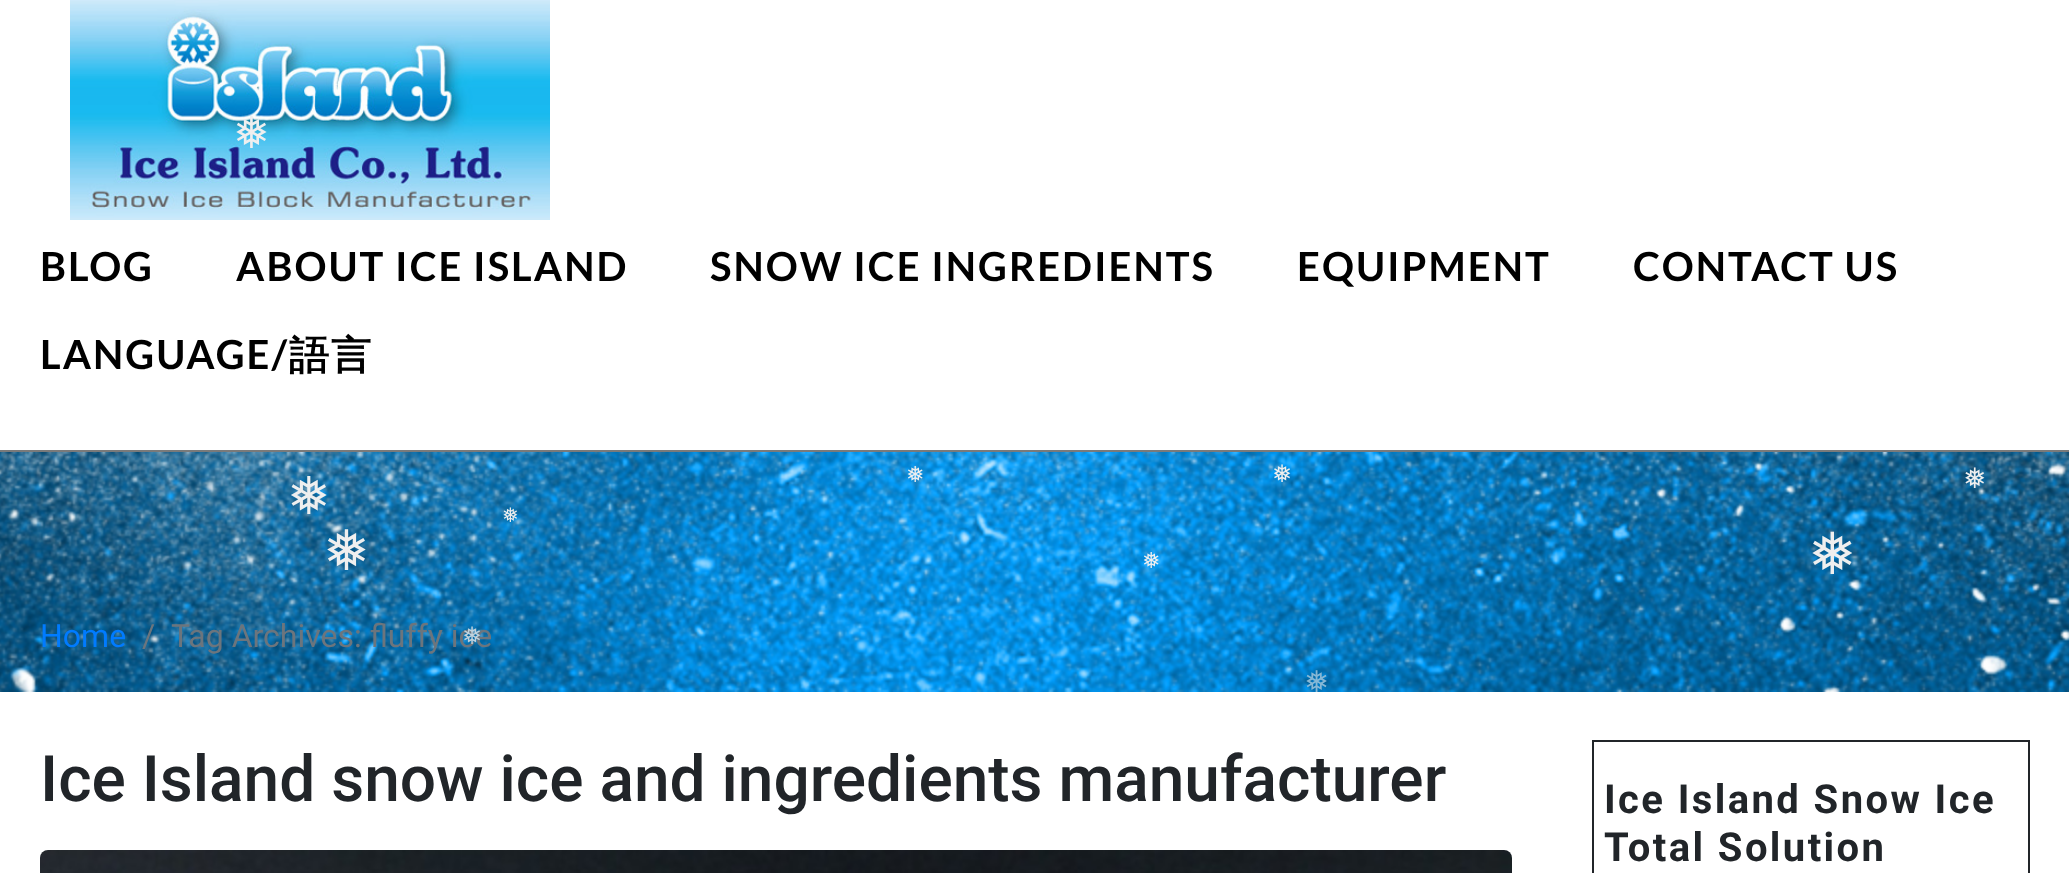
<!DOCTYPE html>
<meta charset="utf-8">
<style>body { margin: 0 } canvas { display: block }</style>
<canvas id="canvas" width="2069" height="873"></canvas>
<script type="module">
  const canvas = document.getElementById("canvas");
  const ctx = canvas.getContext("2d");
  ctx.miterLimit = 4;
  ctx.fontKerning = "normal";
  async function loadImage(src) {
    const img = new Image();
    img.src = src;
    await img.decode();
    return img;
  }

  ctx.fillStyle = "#ffffff";
  ctx.fillRect(0, 0, 2069, 873);
  ctx.drawImage(await loadImage("img1.png"), 70, 0, 480, 220);
  ctx.font = "44px DejaVu Sans";
  ctx.fillStyle = "#efefef";
  ctx.fillText("❅", 233, 148);
  ctx.drawImage(await loadImage("img2.png"), 0, 452, 2069, 240);
  ctx.font = "52px DejaVu Sans";
  ctx.fillText("❅", 287, 514);
  ctx.font = "20px DejaVu Sans";
  ctx.fillText("❅", 502, 522);
  ctx.font = "22px DejaVu Sans";
  ctx.fillText("❅", 906, 482);
  ctx.font = "24px DejaVu Sans";
  ctx.fillText("❅", 1272, 482);
  ctx.font = "28px DejaVu Sans";
  ctx.fillText("❅", 1963, 488);
  ctx.font = "56px DejaVu Sans";
  ctx.fillText("❅", 323, 570);
  ctx.font = "22px DejaVu Sans";
  ctx.fillText("❅", 1142, 568);
  ctx.font = "58px DejaVu Sans";
  ctx.fillText("❅", 1808, 574);
  ctx.font = "32px Roboto";
  ctx.fillStyle = "#6c757d";
  ctx.fillText("Tag Archives: fluffy ice", 171, 647);
  ctx.font = "24px DejaVu Sans";
  ctx.fillStyle = "#c0d2dd";
  ctx.fillText("❅", 462, 644);
  ctx.font = "30px DejaVu Sans";
  ctx.fillStyle = "#86b8d6";
  ctx.fillText("❅", 1304, 692);
  ctx.fillStyle = "#7a7a7a";
  ctx.fillRect(0, 450, 2069, 2);
  ctx.letterSpacing = "2px";
  ctx.font = "bold 40px Lato";
  ctx.fillStyle = "#000000";
  ctx.fillText("BLOG", 40, 281);
  ctx.fillText("ABOUT ICE ISLAND", 236, 281);
  ctx.fillText("SNOW ICE INGREDIENTS", 710, 281);
  ctx.fillText("EQUIPMENT", 1297, 281);
  ctx.fillText("CONTACT US", 1633, 281);
  ctx.fillText("LANGUAGE/", 40, 369);
  ctx.font = "bold 40px WenQuanYi Zen Hei";
  ctx.fillText("語言", 289, 369);
  ctx.letterSpacing = "0px";
  ctx.font = "32px Roboto";
  ctx.fillStyle = "#007bff";
  ctx.fillText("Home", 40, 647);
  ctx.fillStyle = "#6c757d";
  ctx.fillText("/", 142, 647);
  ctx.font = "500 64px Roboto";
  ctx.fillStyle = "#212529";
  ctx.fillText("Ice Island snow ice and ingredients manufacturer", 40, 801);
  ctx.drawImage(await loadImage("img3.png"), 40, 850, 1472, 23);
  ctx.strokeStyle = "#212529";
  ctx.lineWidth = 2;
  ctx.strokeRect(1593, 741, 436, 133);
  ctx.letterSpacing = "2.4px";
  ctx.font = "bold 40px Roboto";
  ctx.fillText("Ice Island Snow Ice", 1604, 813);
  ctx.fillText("Total Solution", 1604, 861);
</script>
